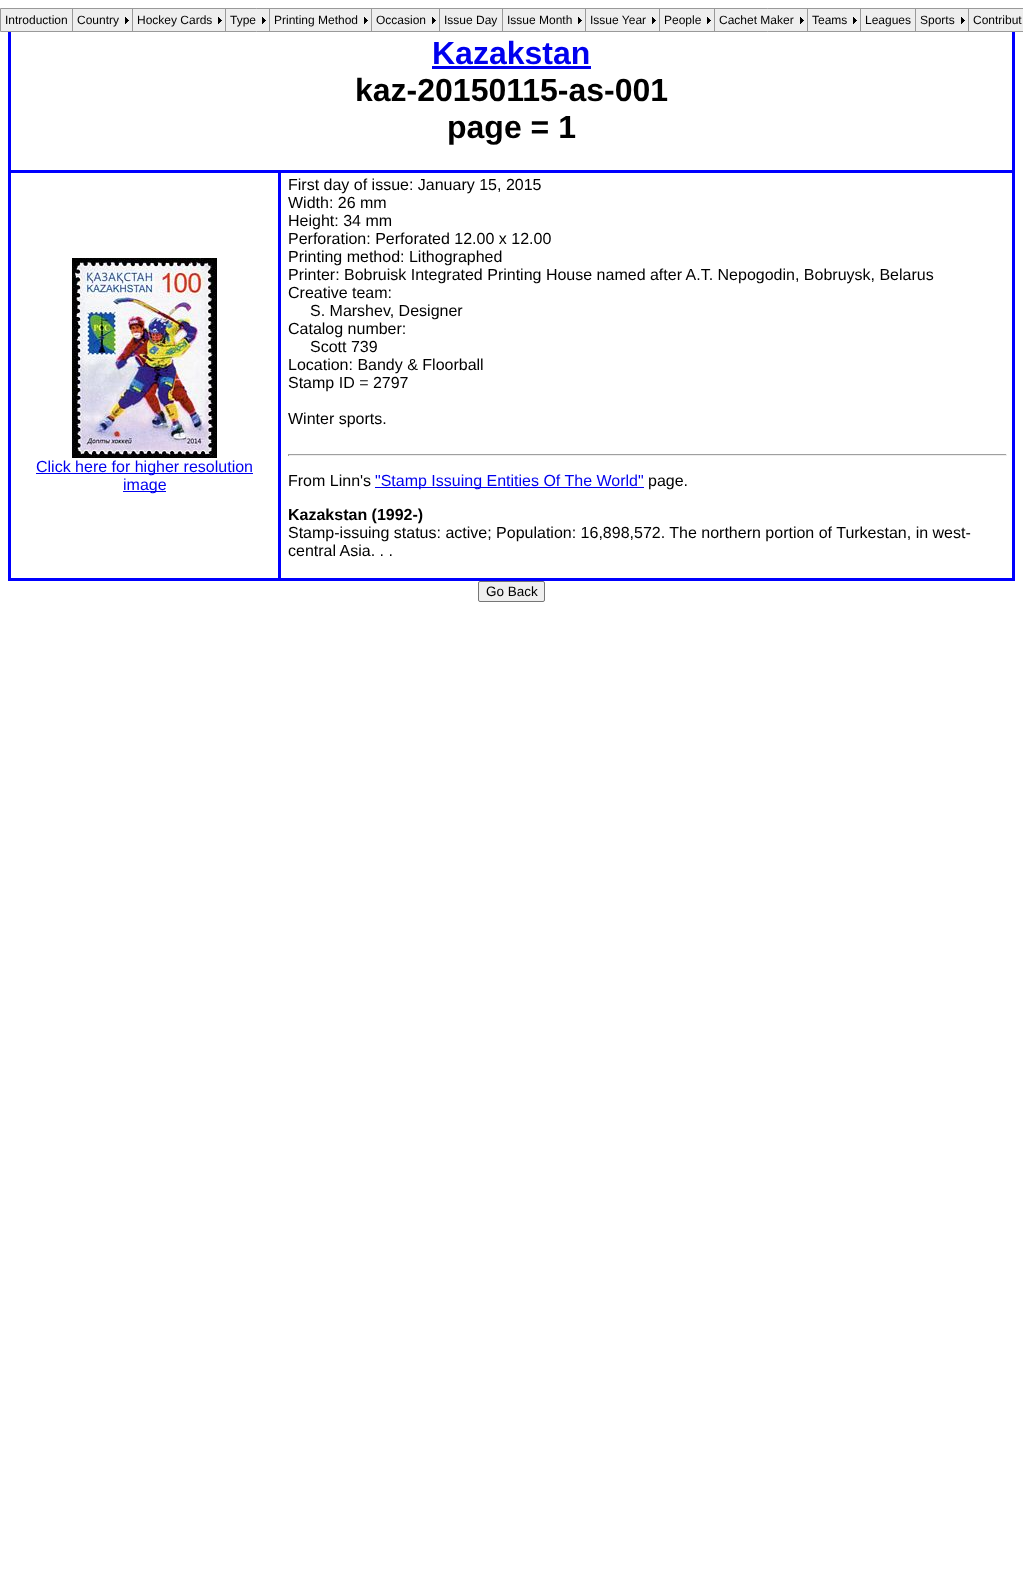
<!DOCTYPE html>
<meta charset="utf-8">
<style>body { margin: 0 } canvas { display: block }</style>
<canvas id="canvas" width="1023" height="1582"></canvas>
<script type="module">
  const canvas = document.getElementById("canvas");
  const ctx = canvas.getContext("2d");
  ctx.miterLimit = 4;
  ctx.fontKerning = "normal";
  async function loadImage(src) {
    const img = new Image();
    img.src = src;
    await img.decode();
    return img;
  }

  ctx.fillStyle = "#ffffff";
  ctx.fillRect(0, 0, 1023, 1582);
  ctx.fillStyle = "#eeeeee";
  ctx.beginPath();
  ctx.rect(0.5, 8.5, 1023, 23);
  ctx.fill();
  ctx.strokeStyle = "#999999";
  ctx.stroke();
  ctx.font = "12px Liberation Sans";
  ctx.fillStyle = "#000000";
  ctx.fillText("Introduction", 5, 24);
  ctx.fillStyle = "#999999";
  ctx.fillRect(72, 9, 1, 22);
  ctx.fillStyle = "#000000";
  ctx.fillText("Country", 77, 24);
  ctx.drawImage(await loadImage("img1.png"), 125, 17, 4, 7);
  ctx.fillStyle = "#999999";
  ctx.fillRect(132, 9, 1, 22);
  ctx.fillStyle = "#000000";
  ctx.fillText("Hockey Cards", 137, 24);
  ctx.drawImage(await loadImage("img1.png"), 218, 17, 4, 7);
  ctx.fillStyle = "#999999";
  ctx.fillRect(225, 9, 1, 22);
  ctx.fillStyle = "#000000";
  ctx.fillText("Type", 230, 24);
  ctx.drawImage(await loadImage("img1.png"), 262, 17, 4, 7);
  ctx.fillStyle = "#999999";
  ctx.fillRect(269, 9, 1, 22);
  ctx.fillStyle = "#000000";
  ctx.fillText("Printing Method", 274, 24);
  ctx.drawImage(await loadImage("img1.png"), 364, 17, 4, 7);
  ctx.fillStyle = "#999999";
  ctx.fillRect(371, 9, 1, 22);
  ctx.fillStyle = "#000000";
  ctx.fillText("Occasion", 376, 24);
  ctx.drawImage(await loadImage("img1.png"), 432, 17, 4, 7);
  ctx.fillStyle = "#999999";
  ctx.fillRect(439, 9, 1, 22);
  ctx.fillStyle = "#000000";
  ctx.fillText("Issue Day", 444, 24);
  ctx.fillStyle = "#999999";
  ctx.fillRect(502, 9, 1, 22);
  ctx.fillStyle = "#000000";
  ctx.fillText("Issue Month", 507, 24);
  ctx.drawImage(await loadImage("img1.png"), 578, 17, 4, 7);
  ctx.fillStyle = "#999999";
  ctx.fillRect(585, 9, 1, 22);
  ctx.fillStyle = "#000000";
  ctx.fillText("Issue Year", 590, 24);
  ctx.drawImage(await loadImage("img1.png"), 652, 17, 4, 7);
  ctx.fillStyle = "#999999";
  ctx.fillRect(659, 9, 1, 22);
  ctx.fillStyle = "#000000";
  ctx.fillText("People", 664, 24);
  ctx.drawImage(await loadImage("img1.png"), 707, 17, 4, 7);
  ctx.fillStyle = "#999999";
  ctx.fillRect(714, 9, 1, 22);
  ctx.fillStyle = "#000000";
  ctx.fillText("Cachet Maker", 719, 24);
  ctx.drawImage(await loadImage("img1.png"), 800, 17, 4, 7);
  ctx.fillStyle = "#999999";
  ctx.fillRect(807, 9, 1, 22);
  ctx.fillStyle = "#000000";
  ctx.fillText("Teams", 812, 24);
  ctx.drawImage(await loadImage("img1.png"), 853, 17, 4, 7);
  ctx.fillStyle = "#999999";
  ctx.fillRect(860, 9, 1, 22);
  ctx.fillStyle = "#000000";
  ctx.fillText("Leagues", 865, 24);
  ctx.fillStyle = "#999999";
  ctx.fillRect(915, 9, 1, 22);
  ctx.fillStyle = "#000000";
  ctx.fillText("Sports", 920, 24);
  ctx.drawImage(await loadImage("img1.png"), 961, 17, 4, 7);
  ctx.fillStyle = "#999999";
  ctx.fillRect(968, 9, 1, 22);
  ctx.fillStyle = "#000000";
  ctx.fillText("Contribut", 973, 24);
  ctx.font = "bold 32px Liberation Sans";
  ctx.fillStyle = "#0000ee";
  ctx.fillText("Kazakstan", 432, 64);
  ctx.fillRect(432, 66, 159, 3);
  ctx.fillStyle = "#000000";
  ctx.fillText("kaz-20150115-as-001", 355, 101);
  ctx.fillText("page = 1", 447, 138);
  ctx.fillStyle = "#0000ff";
  ctx.fillRect(278, 170, 737, 3);
  ctx.fillRect(1012, 32, 3, 549);
  ctx.fillRect(278, 578, 737, 3);
  ctx.fillRect(278, 170, 3, 411);
  ctx.fillRect(8, 170, 273, 3);
  ctx.fillRect(8, 578, 273, 3);
  ctx.fillRect(8, 32, 3, 549);
  ctx.drawImage(await loadImage("img2.png"), 72, 258, 145, 200);
  ctx.fillStyle = "#0000ee";
  ctx.fillRect(36, 473, 217, 1);
  ctx.font = "16px Liberation Sans";
  ctx.fillText("Click here for higher resolution", 36, 472);
  ctx.fillRect(123, 491, 43, 1);
  ctx.fillText("image", 123, 490);
  ctx.fillStyle = "#000000";
  ctx.fillText("First day of issue: January 15, 2015", 288, 190);
  ctx.fillText("Width: 26 mm", 288, 208);
  ctx.fillText("Height: 34 mm", 288, 226);
  ctx.fillText("Perforation: Perforated 12.00 x 12.00", 288, 244);
  ctx.fillText("Printing method: Lithographed", 288, 262);
  ctx.fillText("Printer: Bobruisk Integrated Printing House named after A.T. Nepogodin, Bobruysk, Belarus", 288, 280);
  ctx.fillText("Creative team:", 288, 298);
  ctx.fillText("S. Marshev, Designer", 310, 316);
  ctx.fillText("Catalog number:", 288, 334);
  ctx.fillText("Scott 739", 310, 352);
  ctx.fillText("Location: Bandy & Floorball", 288, 370);
  ctx.fillText("Stamp ID = 2797", 288, 388);
  ctx.fillText("Winter sports.", 288, 424);
  ctx.fillStyle = "#9f9f9f";
  ctx.fillRect(288, 454, 719, 1);
  ctx.fillStyle = "#eeeeee";
  ctx.fillRect(1006, 454, 1, 2);
  ctx.fillRect(288, 455, 719, 1);
  ctx.fillStyle = "#9f9f9f";
  ctx.fillRect(288, 454, 1, 2);
  ctx.fillStyle = "#000000";
  ctx.fillText("From Linn's", 288, 486);
  ctx.fillStyle = "#0000ee";
  ctx.fillRect(375, 487, 269, 1);
  ctx.fillText("\"Stamp Issuing Entities Of The World\"", 375, 486);
  ctx.fillStyle = "#000000";
  ctx.fillText("page.", 648, 486);
  ctx.font = "bold 16px Liberation Sans";
  ctx.fillText("Kazakstan (1992-)", 288, 520);
  ctx.font = "16px Liberation Sans";
  ctx.fillText("Stamp-issuing status: active; Population: 16,898,572. The northern portion of Turkestan, in west-", 288, 538);
  ctx.fillText("central Asia. . .", 288, 556);
  ctx.fillStyle = "#efefef";
  ctx.beginPath();
  ctx.roundRect(478.5, 581.5, 66, 20, 1.5);
  ctx.fill();
  ctx.strokeStyle = "#767676";
  ctx.stroke();
  ctx.font = "13.5px Liberation Sans";
  ctx.fillStyle = "#000000";
  ctx.fillText("Go Back", 486, 596);
</script>
